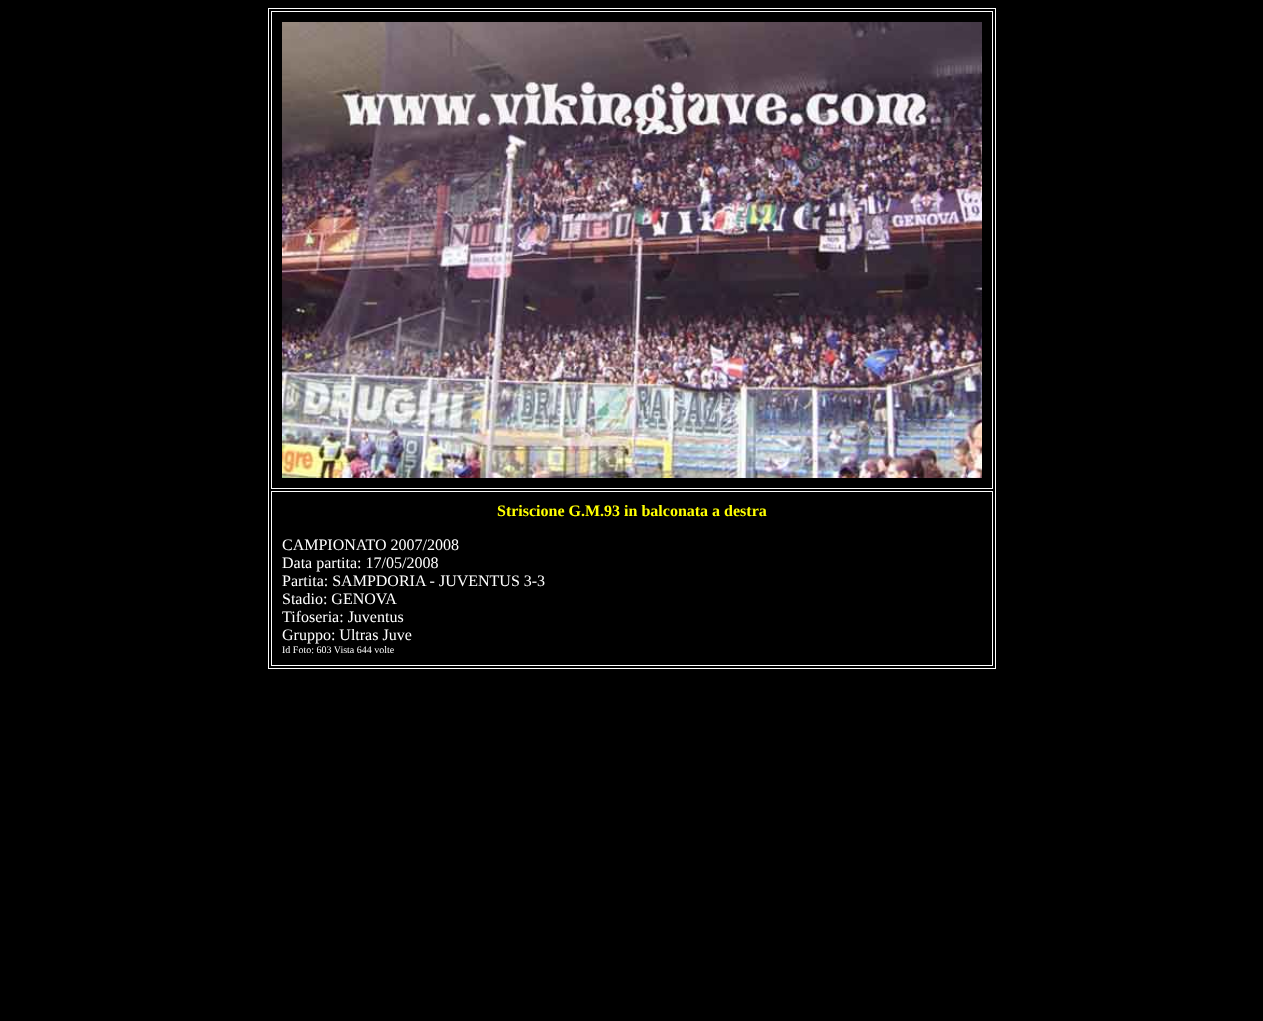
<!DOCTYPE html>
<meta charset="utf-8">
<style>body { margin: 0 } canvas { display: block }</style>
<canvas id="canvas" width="1263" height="1021"></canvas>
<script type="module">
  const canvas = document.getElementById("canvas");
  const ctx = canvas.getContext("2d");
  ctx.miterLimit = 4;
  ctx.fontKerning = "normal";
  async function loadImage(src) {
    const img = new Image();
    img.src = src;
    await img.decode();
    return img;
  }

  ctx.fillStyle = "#000000";
  ctx.fillRect(0, 0, 1263, 1021);
  ctx.strokeStyle = "#ffffff";
  ctx.strokeRect(268.5, 8.5, 727, 660);
  ctx.strokeRect(271.5, 11.5, 721, 477);
  ctx.drawImage(await loadImage("img1.png"), 282, 22, 700, 456);
  ctx.strokeRect(271.5, 491.5, 721, 174);
  ctx.font = "bold 16px Liberation Serif";
  ctx.fillStyle = "#ffff00";
  ctx.fillText("Striscione G.M.93 in balconata a destra", 497, 516);
  ctx.font = "16px Liberation Serif";
  ctx.fillStyle = "#ffffff";
  ctx.fillText("CAMPIONATO 2007/2008", 282, 550);
  ctx.fillText("Data partita: 17/05/2008", 282, 568);
  ctx.fillText("Partita: SAMPDORIA - JUVENTUS 3-3", 282, 586);
  ctx.fillText("Stadio: GENOVA", 282, 604);
  ctx.fillText("Tifoseria: Juventus", 282, 622);
  ctx.fillText("Gruppo: Ultras Juve", 282, 640);
  ctx.font = "10px Liberation Serif";
  ctx.fillText("Id Foto: 603 Vista 644 volte", 282, 653);
</script>
